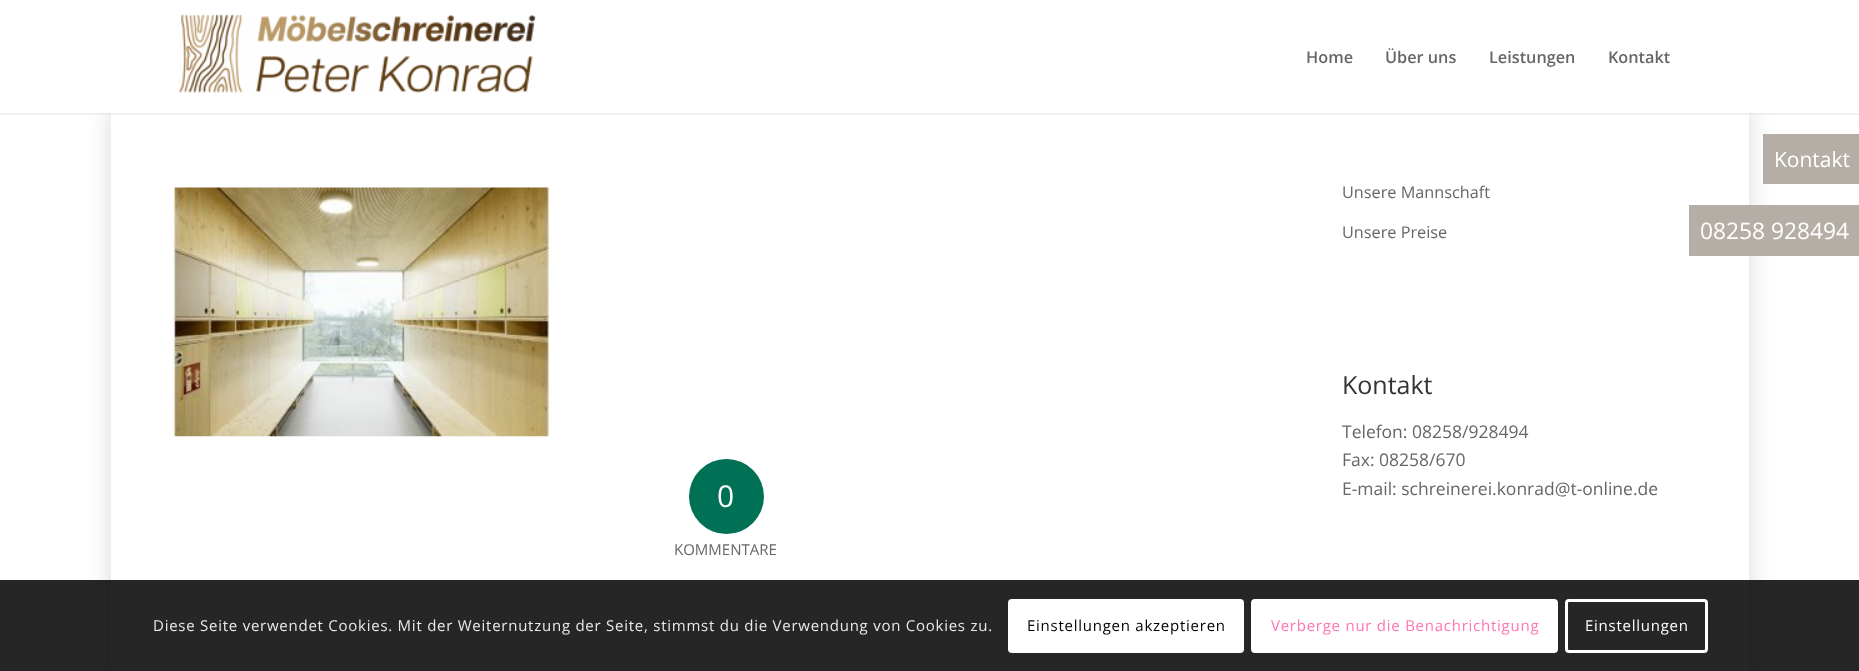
<!DOCTYPE html>
<meta charset="utf-8">
<style>body { margin: 0 } canvas { display: block }</style>
<canvas id="canvas" width="1859" height="671"></canvas>
<script type="module">
  const canvas = document.getElementById("canvas");
  const ctx = canvas.getContext("2d");
  ctx.miterLimit = 4;
  ctx.fontKerning = "normal";
  async function loadImage(src) {
    const img = new Image();
    img.src = src;
    await img.decode();
    return img;
  }

  ctx.fillStyle = "#ffffff";
  ctx.fillRect(0, 0, 1859, 671);
  ctx.fillStyle = "rgba(0, 0, 0, 0.1)";
  ctx.filter = "blur(1px)";
  ctx.beginPath();
  ctx.rect(-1, -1, 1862, 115);
  ctx.fill();
  ctx.filter = "none";
  ctx.save();
  ctx.beginPath();
  ctx.moveTo(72, 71);
  ctx.lineTo(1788, 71);
  ctx.lineTo(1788, 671);
  ctx.lineTo(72, 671);
  ctx.closePath();
  ctx.moveTo(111, 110);
  ctx.lineTo(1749, 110);
  ctx.lineTo(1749, 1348);
  ctx.lineTo(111, 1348);
  ctx.closePath();
  ctx.clip("evenodd");
  ctx.fillStyle = "rgba(0, 0, 0, 0.15)";
  ctx.filter = "blur(12.5px)";
  ctx.beginPath();
  ctx.rect(111, 110, 1638, 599);
  ctx.fill();
  ctx.filter = "none";
  ctx.restore();
  ctx.fillStyle = "#ffffff";
  ctx.fillRect(0, 0, 1859, 113);
  ctx.drawImage(await loadImage("img1.png"), 178, 14, 358, 79);
  ctx.font = "600 16.25px Open Sans";
  ctx.fillStyle = "#666666";
  ctx.fillText("Home", 1306, 63);
  ctx.fillText("Über uns", 1385, 63);
  ctx.fillText("Leistungen", 1489, 63);
  ctx.fillText("Kontakt", 1608, 63);
  ctx.font = "16.25px Open Sans";
  ctx.fillText("Unsere Mannschaft", 1342, 198);
  ctx.fillText("Unsere Preise", 1342, 238);
  ctx.font = "25px Open Sans";
  ctx.fillStyle = "#333333";
  ctx.fillText("Kontakt", 1342, 394);
  ctx.font = "17.5px Open Sans";
  ctx.fillStyle = "#666666";
  ctx.fillText("Telefon: 08258/928494", 1342, 438);
  ctx.fillText("Fax: 08258/670", 1342, 466);
  ctx.fillText("E-mail: schreinerei.konrad@t-online.de", 1342, 495);
  ctx.drawImage(await loadImage("img2.png"), 173, 187, 376, 250);
  ctx.fillStyle = "#007155";
  ctx.beginPath();
  ctx.arc(726.5, 496.5, 37.5, 0, Math.PI * 2);
  ctx.fill();
  ctx.font = "30px Open Sans";
  ctx.fillStyle = "#ffffff";
  ctx.fillText("0", 717, 507);
  ctx.font = "15px Open Sans";
  ctx.fillStyle = "#666666";
  ctx.fillText("KOMMENTARE", 674, 555);
  ctx.fillStyle = "#b5aea6";
  ctx.fillRect(1763, 134, 96, 50);
  ctx.font = "21px Open Sans";
  ctx.fillStyle = "#ffffff";
  ctx.fillText("Kontakt", 1774, 167);
  ctx.fillStyle = "#b5aea6";
  ctx.fillRect(1689, 205, 170, 51);
  ctx.font = "22.75px Open Sans";
  ctx.fillStyle = "#ffffff";
  ctx.fillText("08258 928494", 1700, 239);
  ctx.fillStyle = "rgba(0, 0, 0, 0.85)";
  ctx.fillRect(0, 580, 1859, 91);
  ctx.letterSpacing = "0.75px";
  ctx.font = "15px Open Sans";
  ctx.fillStyle = "#e9e9e9";
  ctx.fillText("Diese Seite verwendet Cookies. Mit der Weiternutzung der Seite, stimmst du die Verwendung von Cookies zu.", 153, 631);
  ctx.fillStyle = "#ffffff";
  ctx.beginPath();
  ctx.roundRect(1008, 599, 236, 54, 4);
  ctx.fill();
  ctx.fillStyle = "#000000";
  ctx.fillText("Einstellungen akzeptieren", 1027, 631);
  ctx.fillStyle = "#ffffff";
  ctx.beginPath();
  ctx.roundRect(1252.5, 600.5, 304, 51, 2.5);
  ctx.fill();
  ctx.strokeStyle = "#ffffff";
  ctx.lineWidth = 3;
  ctx.stroke();
  ctx.fillStyle = "#ff75b5";
  ctx.fillText("Verberge nur die Benachrichtigung", 1271, 631);
  ctx.beginPath();
  ctx.roundRect(1566.5, 600.5, 140, 51, 2.5);
  ctx.stroke();
  ctx.fillStyle = "#ffffff";
  ctx.fillText("Einstellungen", 1585, 631);
</script>
